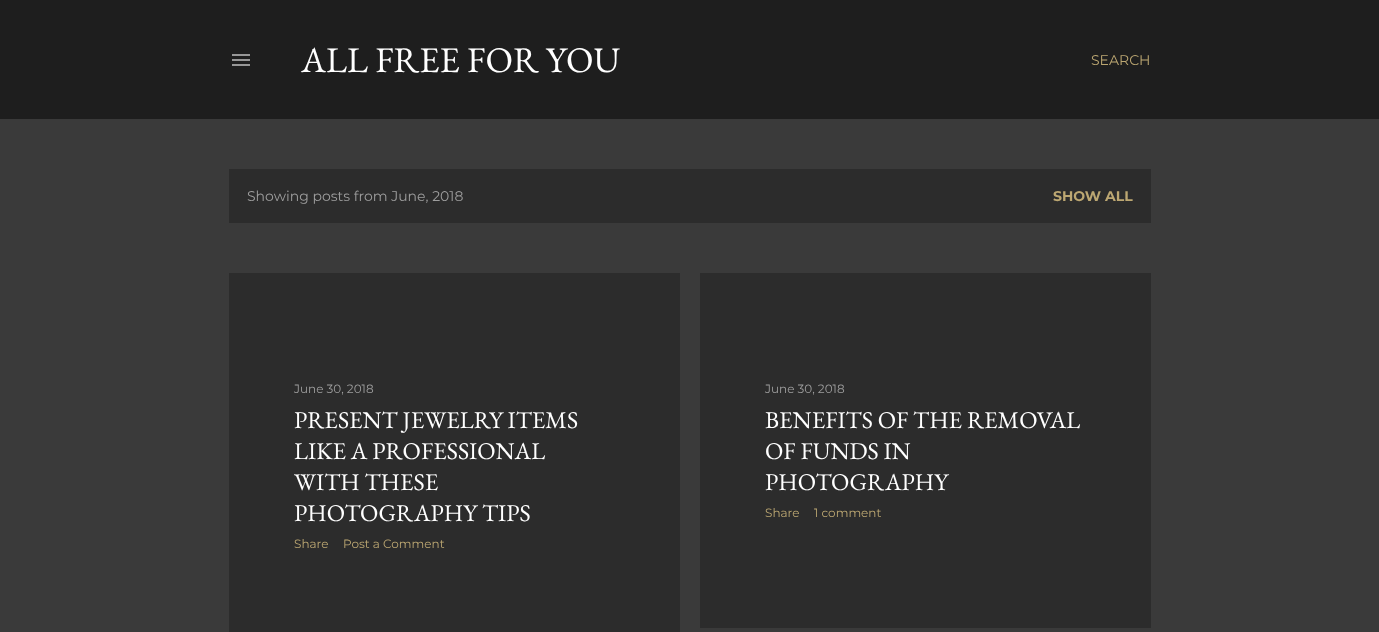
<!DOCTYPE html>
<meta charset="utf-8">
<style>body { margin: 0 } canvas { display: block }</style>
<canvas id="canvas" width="1379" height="632"></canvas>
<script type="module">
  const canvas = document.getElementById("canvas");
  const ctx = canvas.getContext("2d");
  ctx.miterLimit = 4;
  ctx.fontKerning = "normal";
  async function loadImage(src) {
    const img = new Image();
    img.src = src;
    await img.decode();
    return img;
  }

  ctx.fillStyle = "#3a3a3a";
  ctx.fillRect(0, 0, 1379, 632);
  ctx.fillStyle = "#1e1e1e";
  ctx.fillRect(0, 0, 1379, 119);
  ctx.drawImage(await loadImage("img1.png"), 232, 54, 18, 12);
  ctx.font = "36px EB Garamond";
  ctx.fillStyle = "#ffffff";
  ctx.fillText("ALL FREE FOR YOU", 301, 72);
  ctx.font = "14px Montserrat";
  ctx.fillStyle = "#bca772";
  ctx.fillText("SEARCH", 1091, 65);
  ctx.fillStyle = "#2c2c2c";
  ctx.fillRect(229, 169, 922, 54);
  ctx.fillStyle = "#9e9e9e";
  ctx.fillText("Showing posts from June, 2018", 247, 201);
  ctx.font = "bold 14px Montserrat";
  ctx.fillStyle = "#bca772";
  ctx.fillText("SHOW ALL", 1053, 201);
  ctx.fillStyle = "#2c2c2c";
  ctx.fillRect(229, 273, 451, 359);
  ctx.font = "12px Montserrat";
  ctx.fillStyle = "#9e9e9e";
  ctx.fillText("June 30, 2018", 294, 393);
  ctx.font = "24px EB Garamond";
  ctx.fillStyle = "#ffffff";
  ctx.fillText("PRESENT JEWELRY ITEMS", 294, 428);
  ctx.fillText("LIKE A PROFESSIONAL", 294, 459);
  ctx.fillText("WITH THESE", 294, 490);
  ctx.fillText("PHOTOGRAPHY TIPS", 294, 521);
  ctx.font = "12px Montserrat";
  ctx.fillStyle = "#bca772";
  ctx.fillText("Share", 294, 548);
  ctx.fillText("Post a Comment", 343, 548);
  ctx.fillStyle = "#2c2c2c";
  ctx.fillRect(700, 273, 451, 355);
  ctx.fillStyle = "#9e9e9e";
  ctx.fillText("June 30, 2018", 765, 393);
  ctx.font = "24px EB Garamond";
  ctx.fillStyle = "#ffffff";
  ctx.fillText("BENEFITS OF THE REMOVAL", 765, 428);
  ctx.fillText("OF FUNDS IN", 765, 459);
  ctx.fillText("PHOTOGRAPHY", 765, 490);
  ctx.font = "12px Montserrat";
  ctx.fillStyle = "#bca772";
  ctx.fillText("Share", 765, 517);
  ctx.fillText("1 comment", 814, 517);
</script>
